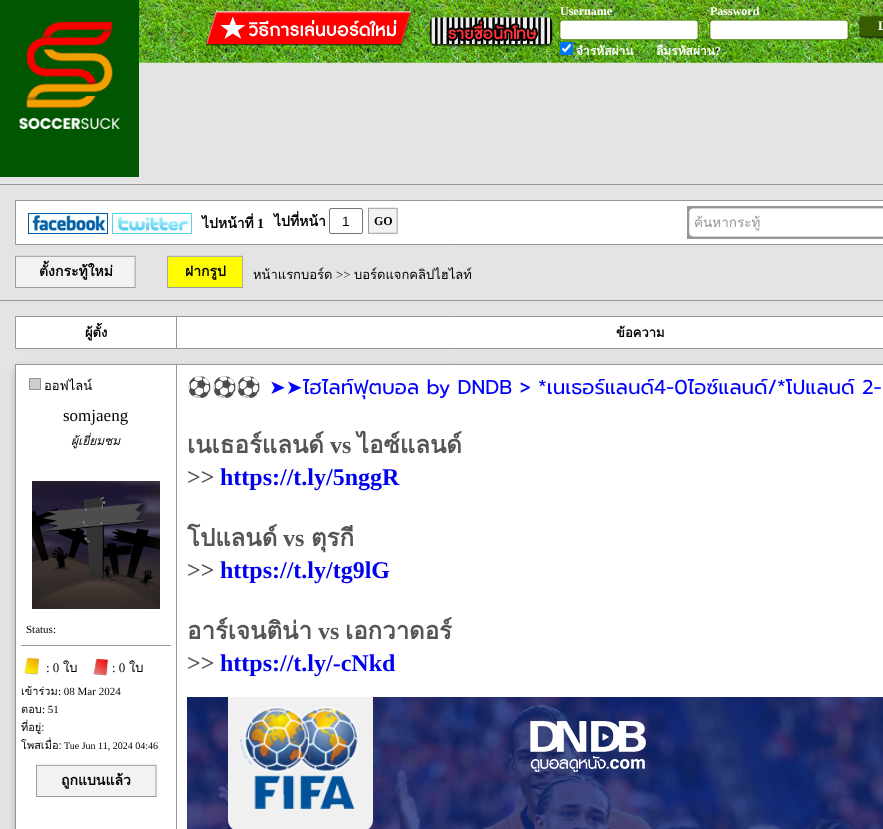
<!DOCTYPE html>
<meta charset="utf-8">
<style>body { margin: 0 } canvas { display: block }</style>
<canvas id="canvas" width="883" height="829"></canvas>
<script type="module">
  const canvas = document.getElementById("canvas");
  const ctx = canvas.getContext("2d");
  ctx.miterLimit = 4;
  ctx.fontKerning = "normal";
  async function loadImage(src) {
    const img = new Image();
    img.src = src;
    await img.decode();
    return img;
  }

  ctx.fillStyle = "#e4e4e4";
  ctx.fillRect(0, 0, 883, 829);
  ctx.drawImage(await loadImage("img1.png"), 139, 0, 744, 63);
  ctx.drawImage(await loadImage("img2.png"), 0, 0, 139, 177);
  ctx.drawImage(await loadImage("img3.png"), 205, 11, 207, 35);
  ctx.drawImage(await loadImage("img4.png"), 429, 17, 124, 30);
  ctx.font = "bold 12px Liberation Serif";
  ctx.fillStyle = "#ffffff";
  ctx.fillText("Username", 560, 15);
  ctx.drawImage(await loadImage("img5.png"), 559, 19, 140, 22);
  ctx.fillRect(561, 21, 136, 1);
  ctx.fillText("Password", 710, 15);
  ctx.drawImage(await loadImage("img6.png"), 709, 19, 140, 22);
  ctx.fillRect(711, 21, 136, 1);
  ctx.fillStyle = "#0075ff";
  ctx.beginPath();
  ctx.roundRect(560, 42, 13, 13, 2);
  ctx.fill();
  ctx.beginPath();
  ctx.moveTo(562.5, 48.5);
  ctx.lineTo(565, 51);
  ctx.lineTo(570.5, 44.5);
  ctx.strokeStyle = "#ffffff";
  ctx.lineWidth = 2.1;
  ctx.stroke();
  ctx.font = "bold 12px Loma";
  ctx.fillStyle = "#ffffff";
  ctx.fillText("จำรหัสผ่าน", 576, 55);
  ctx.fillText("ลืมรหัสผ่าน", 656, 55);
  ctx.font = "bold 12px Liberation Serif";
  ctx.fillText("?", 715, 55);
  ctx.drawImage(await loadImage("img7.png"), 859, 16, 24, 23);
  ctx.font = "bold 13px Liberation Serif";
  ctx.fillText("L", 878, 30);
  ctx.fillStyle = "#969696";
  ctx.fillRect(0, 184, 883, 1);
  ctx.fillStyle = "#ffffff";
  ctx.beginPath();
  ctx.rect(15.5, 200.5, 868, 44);
  ctx.fill();
  ctx.strokeStyle = "#969696";
  ctx.lineWidth = 1;
  ctx.stroke();
  ctx.drawImage(await loadImage("img8.png"), 28, 213, 80, 21);
  ctx.drawImage(await loadImage("img9.png"), 112, 213, 80, 21);
  ctx.font = "bold 14px Loma";
  ctx.fillStyle = "#000000";
  ctx.fillText("ไปหน้าที่", 202, 228);
  ctx.font = "bold 14px Liberation Serif";
  ctx.fillText("1", 257, 228);
  ctx.font = "bold 14px Loma";
  ctx.fillText("ไปที่หน้า", 274, 226);
  ctx.beginPath();
  ctx.roundRect(329.5, 208.5, 33, 25, 1.5);
  ctx.strokeStyle = "#767676";
  ctx.stroke();
  ctx.font = "13.5px Liberation Sans";
  ctx.fillText("1", 342, 226);
  ctx.drawImage(await loadImage("img10.png"), 368, 207, 30, 27);
  ctx.font = "bold 12px Liberation Serif";
  ctx.fillText("GO", 374, 225);
  ctx.fillStyle = "#969696";
  ctx.fillRect(687, 206, 196, 33);
  ctx.drawImage(await loadImage("img11.png"), 689, 208, 194, 29);
  ctx.fillStyle = "#cecece";
  ctx.fillRect(690, 235, 1, 1);
  ctx.save();
  ctx.beginPath();
  ctx.rect(690, 212, 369, 21);
  ctx.clip();
  ctx.font = "13.5px Loma";
  ctx.fillStyle = "#969696";
  ctx.fillText("ค้นหากระทู้", 694, 227);
  ctx.restore();
  ctx.fillStyle = "#969696";
  ctx.fillRect(0, 300, 883, 1);
  ctx.drawImage(await loadImage("img12.png"), 15, 255, 121, 33);
  ctx.font = "bold 14px Loma";
  ctx.fillStyle = "#000000";
  ctx.fillText("ตั้งกระทู้ใหม่", 39, 276);
  ctx.drawImage(await loadImage("img13.png"), 167, 255, 76, 33);
  ctx.fillText("ฝากรูป", 185, 276);
  ctx.font = "13px Loma";
  ctx.fillText("หน้าแรกบอร์ด", 253, 279);
  ctx.font = "13px Liberation Serif";
  ctx.fillText(">>", 336, 279);
  ctx.font = "13px Loma";
  ctx.fillText("บอร์ดแจกคลิปไฮไลท์", 354, 279);
  ctx.fillStyle = "#ffffff";
  ctx.beginPath();
  ctx.rect(15.5, 316.5, 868, 32);
  ctx.fill();
  ctx.strokeStyle = "#969696";
  ctx.stroke();
  ctx.fillStyle = "#969696";
  ctx.fillRect(176, 317, 1, 31);
  ctx.font = "bold 13px Loma";
  ctx.fillStyle = "#000000";
  ctx.fillText("ผู้ตั้ง", 85, 337);
  ctx.fillText("ข้อความ", 616, 337);
  ctx.fillStyle = "#969696";
  ctx.filter = "blur(4px)";
  ctx.beginPath();
  ctx.rect(17, 369, 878, 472);
  ctx.fill();
  ctx.filter = "none";
  ctx.fillStyle = "#ffffff";
  ctx.beginPath();
  ctx.rect(15.5, 364.5, 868, 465);
  ctx.fill();
  ctx.stroke();
  ctx.fillStyle = "#cccccc";
  ctx.beginPath();
  ctx.rect(29.5, 378.5, 11, 11);
  ctx.fill();
  ctx.stroke();
  ctx.font = "13px Loma";
  ctx.fillStyle = "#000000";
  ctx.fillText("ออฟไลน์", 44, 390);
  ctx.font = "17px Liberation Serif";
  ctx.fillText("somjaeng", 63, 421);
  ctx.font = "italic 12px Loma";
  ctx.fillText("ผู้เยี่ยมชม", 71, 445);
  ctx.drawImage(await loadImage("img14.png"), 32, 481, 128, 128);
  ctx.font = "11px Liberation Serif";
  ctx.fillText("Status:", 26, 633);
  ctx.fillStyle = "#969696";
  ctx.fillRect(21, 645, 150, 1);
  ctx.drawImage(await loadImage("img15.png"), 24, 657, 16, 18);
  ctx.font = "13px Liberation Serif";
  ctx.fillStyle = "#000000";
  ctx.fillText(": 0", 46, 672);
  ctx.font = "13px Loma";
  ctx.fillText("ใบ", 63, 672);
  ctx.drawImage(await loadImage("img16.png"), 93, 658, 15, 18);
  ctx.font = "13px Liberation Serif";
  ctx.fillText(": 0", 112, 672);
  ctx.font = "13px Loma";
  ctx.fillText("ใบ", 129, 672);
  ctx.font = "11px Loma";
  ctx.fillText("เข้าร่วม", 21, 695);
  ctx.font = "11px Liberation Serif";
  ctx.fillText(": 08 Mar 2024", 58, 695);
  ctx.font = "11px Loma";
  ctx.fillText("ตอบ", 21, 713);
  ctx.font = "11px Liberation Serif";
  ctx.fillText(": 51", 42, 713);
  ctx.font = "11px Loma";
  ctx.fillText("ที่อยู่:", 21, 731);
  ctx.fillText("โพสเมื่อ:", 21, 749);
  ctx.font = "10px Liberation Serif";
  ctx.fillText("Tue Jun 11, 2024 04:46", 64, 749);
  ctx.drawImage(await loadImage("img17.png"), 36, 764, 121, 33);
  ctx.font = "bold 14px Loma";
  ctx.fillText("ถูกแบนแล้ว", 61, 785);
  ctx.fillStyle = "#969696";
  ctx.fillRect(176, 365, 1, 464);
  ctx.font = "20px Noto Color Emoji";
  ctx.fillStyle = "#0000ff";
  ctx.fillText("⚽️⚽️⚽️", 187, 394);
  ctx.font = "20px DejaVu Sans";
  ctx.fillText("➤➤", 269, 394);
  ctx.font = "20px Prompt";
  ctx.fillText("ไฮไลท์ฟุตบอล by DNDB > *เนเธอร์แลนด์4-0ไอซ์แลนด์/*โปแลนด์ 2-", 303, 394);
  ctx.font = "bold 24px Loma";
  ctx.fillStyle = "#555555";
  ctx.fillText("เนเธอร์แลนด์", 187, 453);
  ctx.font = "bold 24px Liberation Serif";
  ctx.fillText("vs", 330, 453);
  ctx.font = "bold 24px Loma";
  ctx.fillText("ไอซ์แลนด์", 357, 453);
  ctx.font = "bold 24px Liberation Serif";
  ctx.fillText(">>", 187, 485);
  ctx.fillStyle = "#0000ee";
  ctx.fillText("https://t.ly/5nggR", 220, 485);
  ctx.font = "bold 24px Loma";
  ctx.fillStyle = "#555555";
  ctx.fillText("โปแลนด์", 187, 546);
  ctx.font = "bold 24px Liberation Serif";
  ctx.fillText("vs", 283, 546);
  ctx.font = "bold 24px Loma";
  ctx.fillText("ตุรกี", 311, 546);
  ctx.font = "bold 24px Liberation Serif";
  ctx.fillText(">>", 187, 578);
  ctx.fillStyle = "#0000ee";
  ctx.fillText("https://t.ly/tg9lG", 220, 578);
  ctx.font = "bold 24px Loma";
  ctx.fillStyle = "#555555";
  ctx.fillText("อาร์เจนติน่า", 187, 639);
  ctx.font = "bold 24px Liberation Serif";
  ctx.fillText("vs", 318, 639);
  ctx.font = "bold 24px Loma";
  ctx.fillText("เอกวาดอร์", 345, 639);
  ctx.font = "bold 24px Liberation Serif";
  ctx.fillText(">>", 187, 671);
  ctx.fillStyle = "#0000ee";
  ctx.fillText("https://t.ly/-cNkd", 220, 671);
  ctx.drawImage(await loadImage("img18.png"), 187, 697, 696, 132);
</script>
